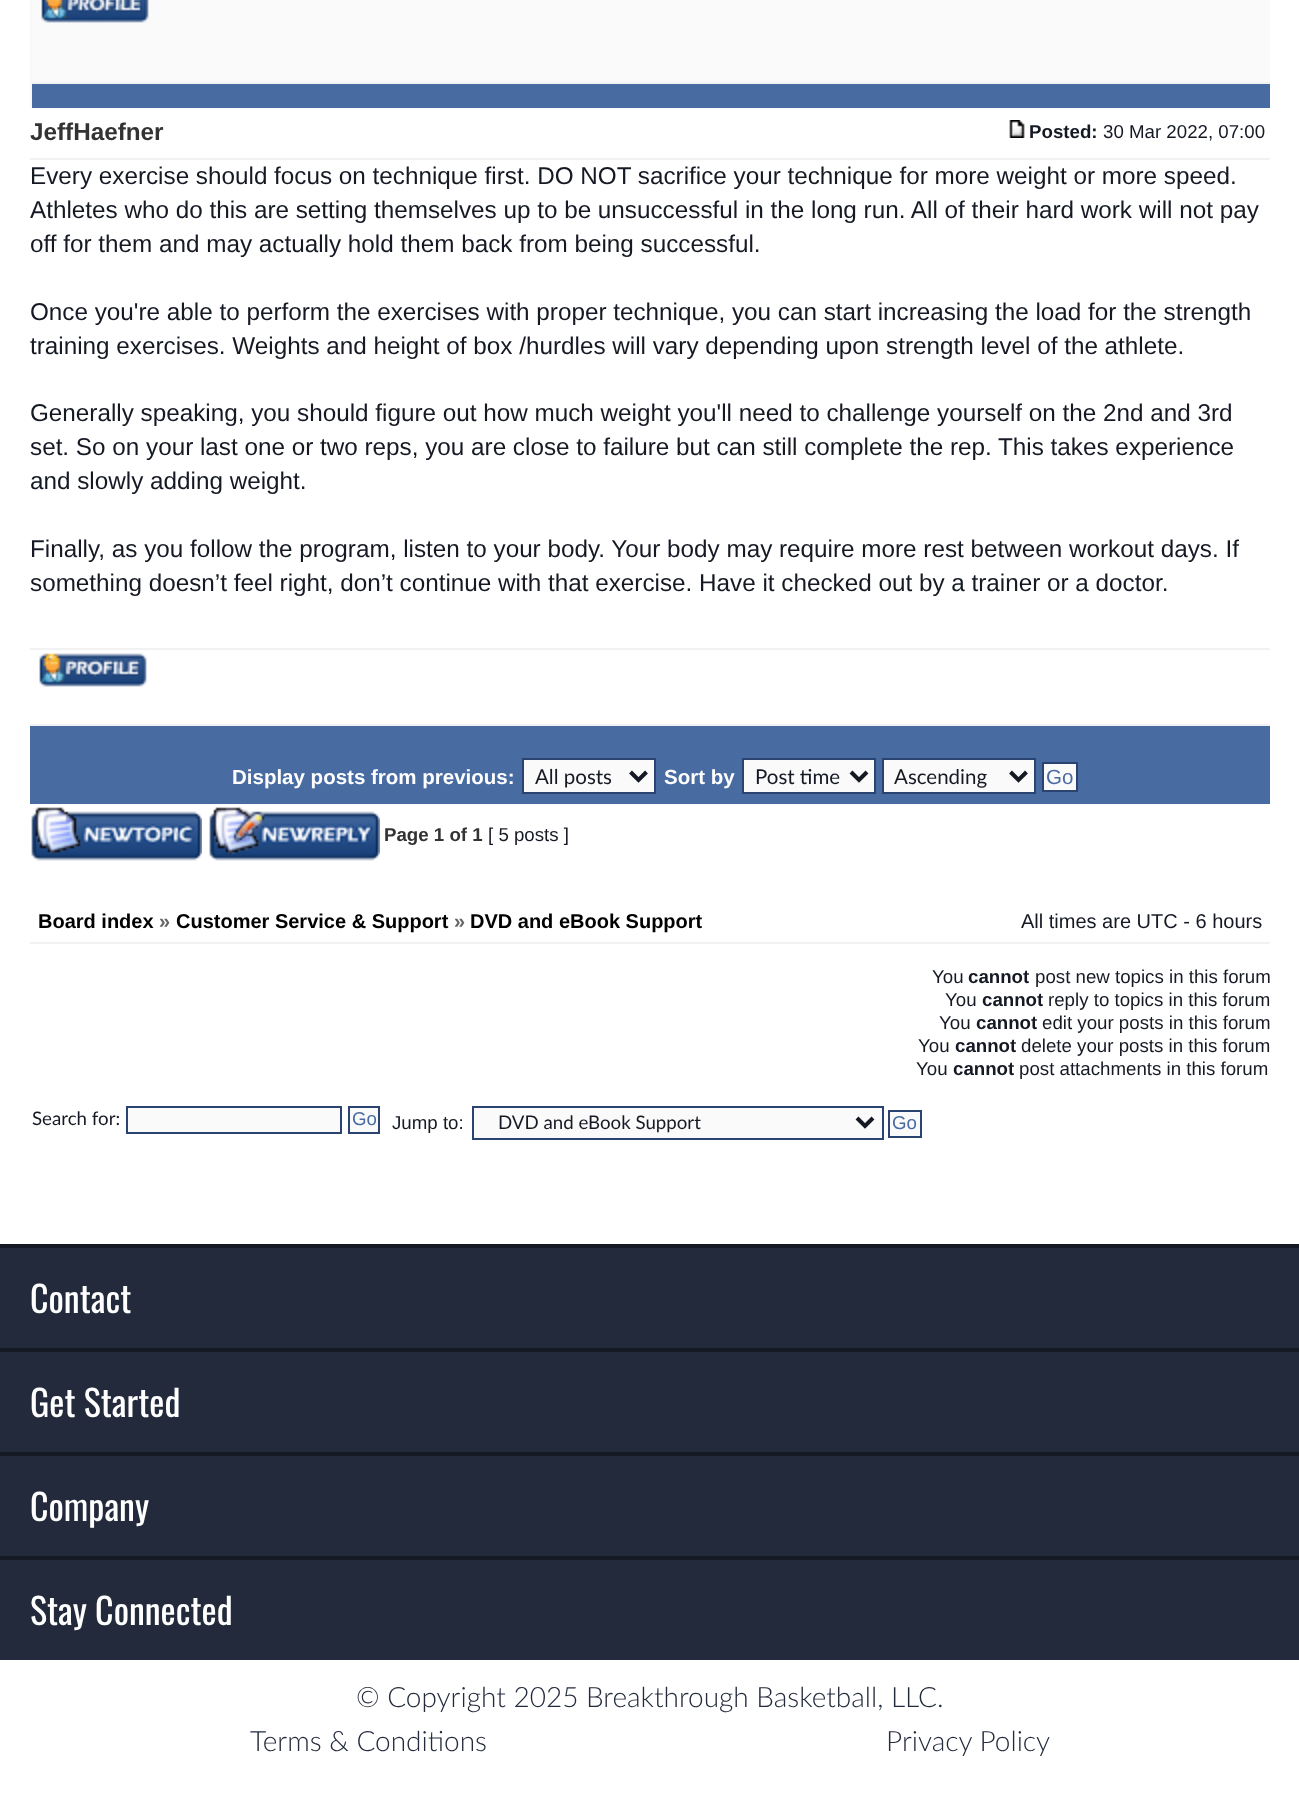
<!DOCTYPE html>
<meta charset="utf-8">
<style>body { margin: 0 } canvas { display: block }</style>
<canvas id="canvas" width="1299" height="1798"></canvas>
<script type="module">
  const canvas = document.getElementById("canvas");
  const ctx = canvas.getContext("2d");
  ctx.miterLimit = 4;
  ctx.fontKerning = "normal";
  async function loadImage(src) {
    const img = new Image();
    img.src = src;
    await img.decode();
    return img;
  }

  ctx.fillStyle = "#ffffff";
  ctx.fillRect(0, 0, 1299, 1798);
  ctx.fillStyle = "#f8f8f8";
  ctx.fillRect(30, 84, 2, 24);
  ctx.fillStyle = "#fafafa";
  ctx.fillRect(32, 0, 1238, 82);
  ctx.fillStyle = "#f2f2f2";
  ctx.fillRect(30, 82, 1240, 2);
  ctx.fillStyle = "#f8f8f8";
  ctx.fillRect(30, 0, 2, 84);
  ctx.drawImage(await loadImage("img1.png"), 41, 0, 108, 23);
  ctx.fillStyle = "#486ca1";
  ctx.fillRect(32, 84, 1238, 24);
  ctx.fillStyle = "#f2f2f2";
  ctx.fillRect(30, 158, 1240, 2);
  ctx.font = "bold 24.27px Liberation Sans";
  ctx.fillStyle = "#333333";
  ctx.fillText("JeffHaefner", 30, 140);
  ctx.drawImage(await loadImage("img2.png"), 1009, 120, 16, 18);
  ctx.font = "bold 18.7px Liberation Sans";
  ctx.fillStyle = "#151924";
  ctx.fillText("Posted:", 1029, 138);
  ctx.font = "18.7px Liberation Sans";
  ctx.fillText("30 Mar 2022, 07:00", 1103, 138);
  ctx.fillStyle = "#f2f2f2";
  ctx.fillRect(30, 648, 1240, 2);
  ctx.font = "24.27px Liberation Sans";
  ctx.fillStyle = "#151924";
  ctx.fillText("Every exercise should focus on technique first. DO NOT sacrifice your technique for more weight or more speed.", 30, 184);
  ctx.fillText("Athletes who do this are setting themselves up to be unsuccessful in the long run. All of their hard work will not pay", 30, 218);
  ctx.fillText("off for them and may actually hold them back from being successful.", 30, 252);
  ctx.fillText("Once you're able to perform the exercises with proper technique, you can start increasing the load for the strength", 30, 320);
  ctx.fillText("training exercises. Weights and height of box /hurdles will vary depending upon strength level of the athlete.", 30, 354);
  ctx.fillText("Generally speaking, you should figure out how much weight you'll need to challenge yourself on the 2nd and 3rd", 30, 421);
  ctx.fillText("set. So on your last one or two reps, you are close to failure but can still complete the rep. This takes experience", 30, 455);
  ctx.fillText("and slowly adding weight.", 30, 489);
  ctx.fillText("Finally, as you follow the program, listen to your body. Your body may require more rest between workout days. If", 30, 557);
  ctx.fillText("something doesn’t feel right, don’t continue with that exercise. Have it checked out by a trainer or a doctor.", 30, 591);
  ctx.fillStyle = "#f2f2f2";
  ctx.fillRect(30, 724, 1240, 2);
  ctx.drawImage(await loadImage("img3.png"), 39, 653, 108, 34);
  ctx.fillStyle = "#486ca1";
  ctx.fillRect(30, 726, 1240, 78);
  ctx.font = "bold 20.5px Liberation Sans";
  ctx.fillStyle = "#ffffff";
  ctx.fillText("Display posts from previous:", 232, 784);
  ctx.fillStyle = "#fafafa";
  ctx.beginPath();
  ctx.rect(523, 759, 132, 34);
  ctx.fill();
  ctx.strokeStyle = "#2b4370";
  ctx.lineWidth = 2;
  ctx.stroke();
  ctx.beginPath();
  ctx.moveTo(630.5, 772);
  ctx.lineTo(638.5, 780);
  ctx.lineTo(646.5, 772);
  ctx.strokeStyle = "#151924";
  ctx.lineWidth = 4;
  ctx.stroke();
  ctx.font = "20.5px Lato";
  ctx.fillStyle = "#151924";
  ctx.fillText("All posts", 535, 784);
  ctx.font = "bold 20.5px Liberation Sans";
  ctx.fillStyle = "#ffffff";
  ctx.fillText("Sort by", 664, 784);
  ctx.fillStyle = "#fafafa";
  ctx.beginPath();
  ctx.rect(743, 759, 132, 34);
  ctx.fill();
  ctx.strokeStyle = "#2b4370";
  ctx.lineWidth = 2;
  ctx.stroke();
  ctx.beginPath();
  ctx.moveTo(851, 772);
  ctx.lineTo(859, 780);
  ctx.lineTo(867, 772);
  ctx.strokeStyle = "#151924";
  ctx.lineWidth = 4;
  ctx.stroke();
  ctx.font = "20.5px Lato";
  ctx.fillStyle = "#151924";
  ctx.fillText("Post time", 755, 784);
  ctx.fillStyle = "#fafafa";
  ctx.beginPath();
  ctx.rect(883, 759, 152, 34);
  ctx.fill();
  ctx.strokeStyle = "#2b4370";
  ctx.lineWidth = 2;
  ctx.stroke();
  ctx.beginPath();
  ctx.moveTo(1010.5, 772);
  ctx.lineTo(1018.5, 780);
  ctx.lineTo(1026.5, 772);
  ctx.strokeStyle = "#151924";
  ctx.lineWidth = 4;
  ctx.stroke();
  ctx.fillStyle = "#151924";
  ctx.fillText("Ascending", 894, 784);
  ctx.fillStyle = "#fafafa";
  ctx.beginPath();
  ctx.rect(1043, 763, 34, 28);
  ctx.fill();
  ctx.strokeStyle = "#2b4370";
  ctx.lineWidth = 2;
  ctx.stroke();
  ctx.font = "20.5px Liberation Sans";
  ctx.fillStyle = "#486ca1";
  ctx.fillText("Go", 1046, 784);
  ctx.drawImage(await loadImage("img4.png"), 31, 807, 171, 54);
  ctx.drawImage(await loadImage("img5.png"), 209, 807, 171, 54);
  ctx.font = "bold 18.7px Liberation Sans";
  ctx.fillStyle = "#333333";
  ctx.fillText("Page 1 of 1", 384, 841);
  ctx.font = "18.7px Liberation Sans";
  ctx.fillStyle = "#151924";
  ctx.fillText("[ 5 posts ]", 488, 841);
  ctx.fillStyle = "#f2f2f2";
  ctx.fillRect(30, 942, 1240, 2);
  ctx.font = "bold 20px Liberation Sans";
  ctx.fillStyle = "#000000";
  ctx.fillText("Board index", 38, 928);
  ctx.fillStyle = "#666666";
  ctx.fillText("»", 159, 928);
  ctx.fillStyle = "#000000";
  ctx.fillText("Customer Service & Support", 176, 928);
  ctx.fillStyle = "#666666";
  ctx.fillText("»", 454, 928);
  ctx.fillStyle = "#000000";
  ctx.fillText("DVD and eBook Support", 470, 928);
  ctx.font = "20px Liberation Sans";
  ctx.fillStyle = "#151924";
  ctx.fillText("All times are UTC - 6 hours", 1021, 928);
  ctx.font = "18.7px Liberation Sans";
  ctx.fillText("You", 932, 983);
  ctx.font = "bold 18.7px Liberation Sans";
  ctx.fillText("cannot", 968, 983);
  ctx.font = "18.7px Liberation Sans";
  ctx.fillText("post new topics in this forum", 1035, 983);
  ctx.fillText("You", 945, 1006);
  ctx.font = "bold 18.7px Liberation Sans";
  ctx.fillText("cannot", 982, 1006);
  ctx.font = "18.7px Liberation Sans";
  ctx.fillText("reply to topics in this forum", 1048, 1006);
  ctx.fillText("You", 939, 1029);
  ctx.font = "bold 18.7px Liberation Sans";
  ctx.fillText("cannot", 976, 1029);
  ctx.font = "18.7px Liberation Sans";
  ctx.fillText("edit your posts in this forum", 1042, 1029);
  ctx.fillText("You", 918, 1052);
  ctx.font = "bold 18.7px Liberation Sans";
  ctx.fillText("cannot", 955, 1052);
  ctx.font = "18.7px Liberation Sans";
  ctx.fillText("delete your posts in this forum", 1021, 1052);
  ctx.fillText("You", 916, 1075);
  ctx.font = "bold 18.7px Liberation Sans";
  ctx.fillText("cannot", 953, 1075);
  ctx.font = "18.7px Liberation Sans";
  ctx.fillText("post attachments in this forum", 1019, 1075);
  ctx.font = "18.7px Lato";
  ctx.fillText("Search for:", 32, 1125);
  ctx.fillStyle = "#fafafa";
  ctx.beginPath();
  ctx.rect(127, 1107, 214, 26);
  ctx.fill();
  ctx.stroke();
  ctx.beginPath();
  ctx.rect(349, 1107, 30, 26);
  ctx.fill();
  ctx.stroke();
  ctx.font = "18.7px Liberation Sans";
  ctx.fillStyle = "#486ca1";
  ctx.fillText("Go", 352, 1125);
  ctx.fillStyle = "#151924";
  ctx.fillText("Jump to:", 392, 1129);
  ctx.fillStyle = "#fafafa";
  ctx.beginPath();
  ctx.rect(473, 1107, 410, 32);
  ctx.fill();
  ctx.stroke();
  ctx.beginPath();
  ctx.moveTo(857, 1118);
  ctx.lineTo(865, 1126);
  ctx.lineTo(873, 1118);
  ctx.strokeStyle = "#151924";
  ctx.lineWidth = 4;
  ctx.stroke();
  ctx.font = "18.7px Lato";
  ctx.fillStyle = "#151924";
  ctx.fillText("DVD and eBook Support", 498, 1129);
  ctx.fillStyle = "#fafafa";
  ctx.beginPath();
  ctx.rect(889, 1111, 32, 26);
  ctx.fill();
  ctx.strokeStyle = "#2b4370";
  ctx.lineWidth = 2;
  ctx.stroke();
  ctx.font = "18.7px Liberation Sans";
  ctx.fillStyle = "#486ca1";
  ctx.fillText("Go", 892, 1129);
  ctx.fillStyle = "#232a3b";
  ctx.fillRect(0, 1248, 1299, 412);
  ctx.fillStyle = "#151924";
  ctx.fillRect(0, 1244, 1299, 4);
  ctx.font = "36px Oswald";
  ctx.fillStyle = "#ffffff";
  ctx.fillText("Contact", 30, 1313);
  ctx.fillStyle = "#151924";
  ctx.fillRect(0, 1348, 1299, 4);
  ctx.fillStyle = "#ffffff";
  ctx.fillText("Get Started", 30, 1417);
  ctx.fillStyle = "#151924";
  ctx.fillRect(0, 1452, 1299, 4);
  ctx.fillStyle = "#ffffff";
  ctx.fillText("Company", 30, 1521);
  ctx.fillStyle = "#151924";
  ctx.fillRect(0, 1556, 1299, 4);
  ctx.fillStyle = "#ffffff";
  ctx.fillText("Stay Connected", 30, 1625);
  ctx.font = "300 28px Lato";
  ctx.fillStyle = "#232a3b";
  ctx.fillText("© Copyright 2025 Breakthrough Basketball, LLC.", 356, 1707);
  ctx.fillText("Terms & Conditions", 250, 1751);
  ctx.fillText("Privacy Policy", 886, 1751);
</script>
